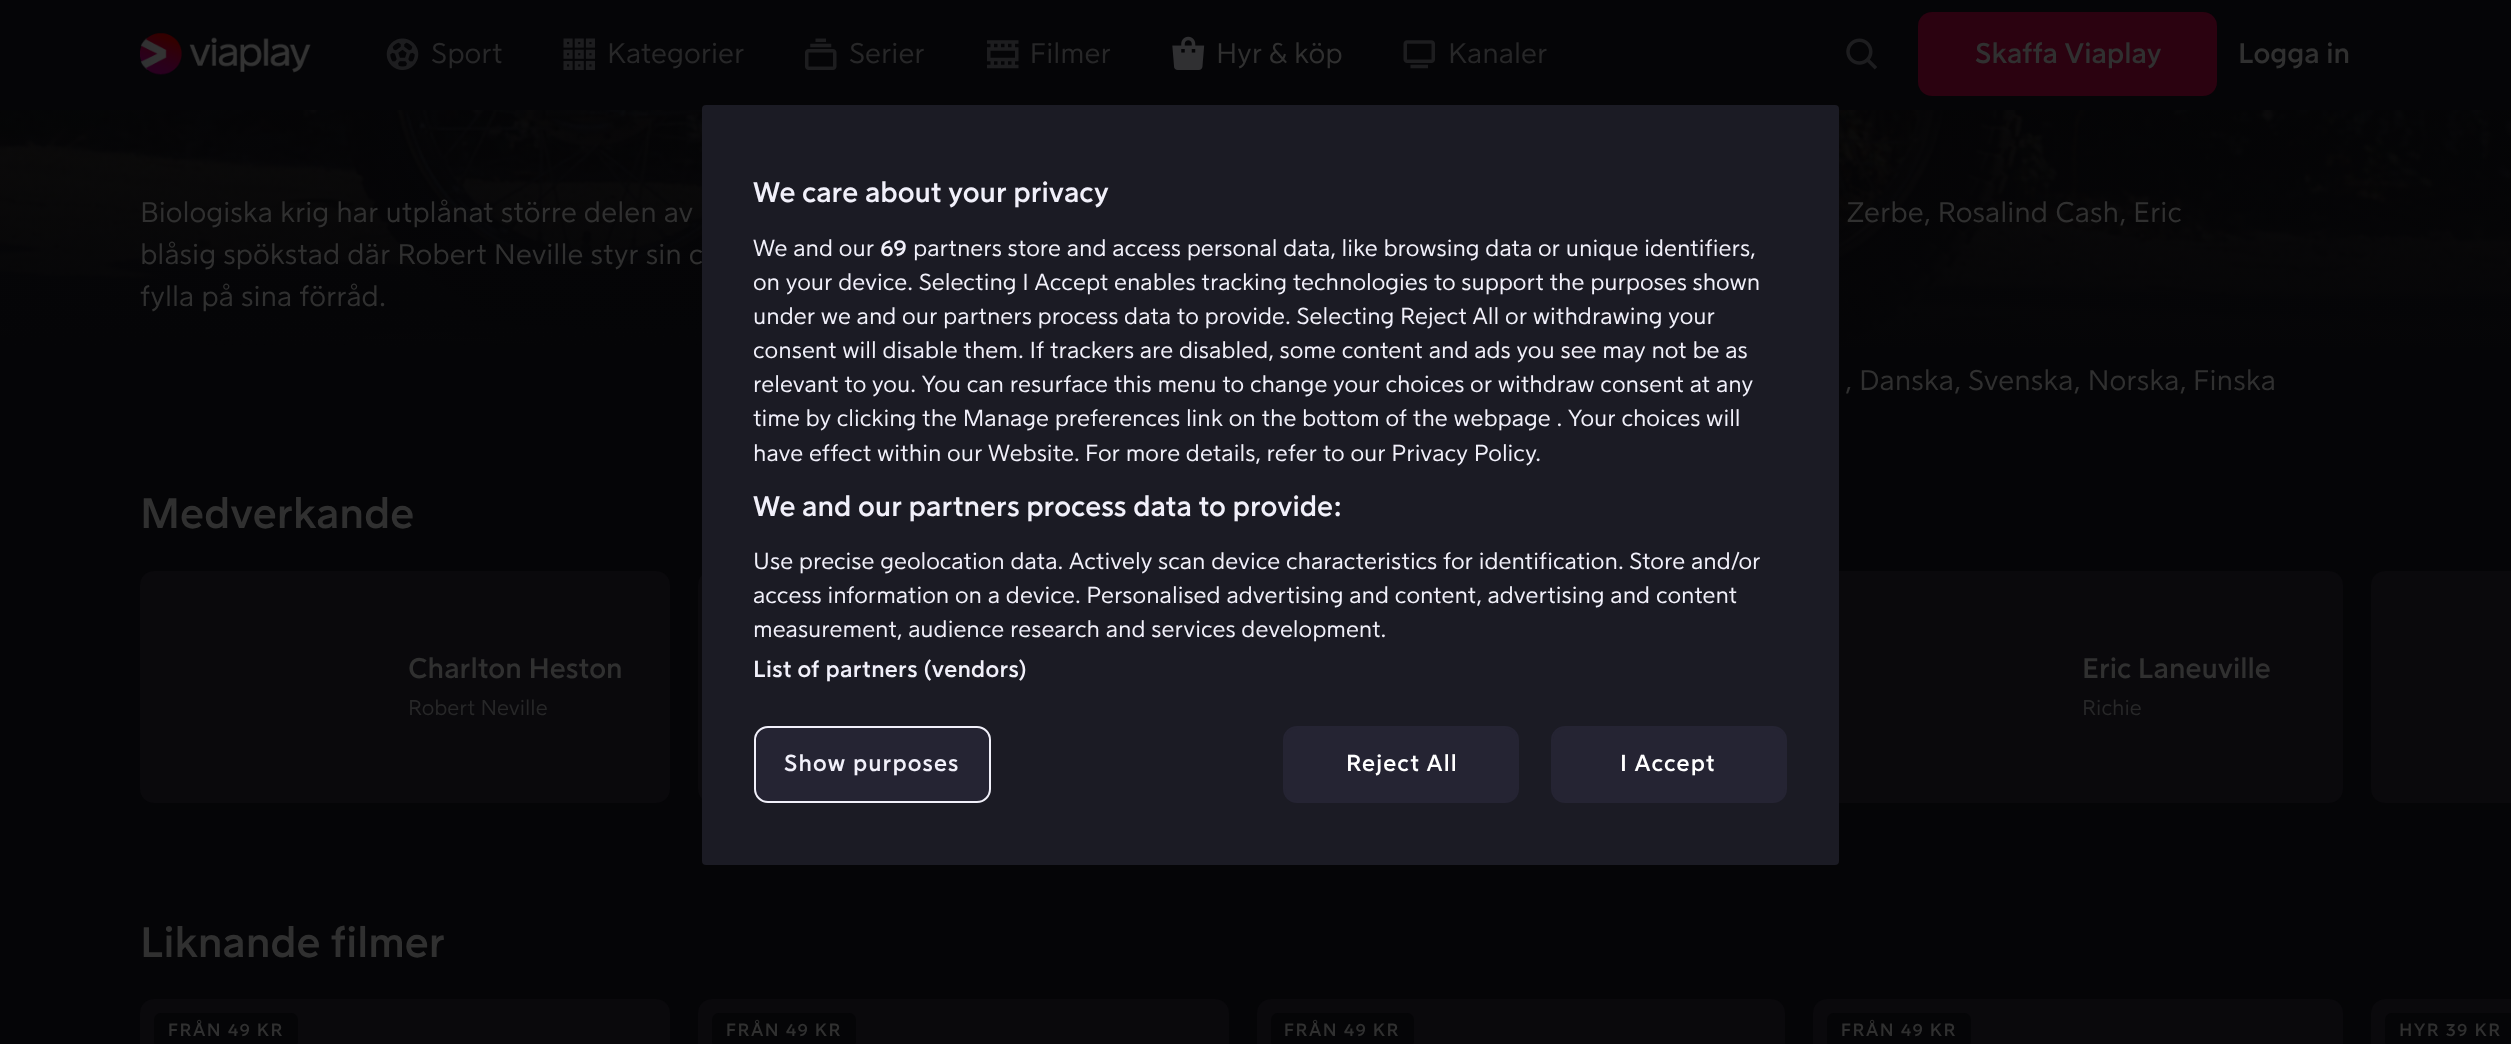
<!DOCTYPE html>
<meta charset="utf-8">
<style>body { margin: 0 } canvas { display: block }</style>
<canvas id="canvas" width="2511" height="1044"></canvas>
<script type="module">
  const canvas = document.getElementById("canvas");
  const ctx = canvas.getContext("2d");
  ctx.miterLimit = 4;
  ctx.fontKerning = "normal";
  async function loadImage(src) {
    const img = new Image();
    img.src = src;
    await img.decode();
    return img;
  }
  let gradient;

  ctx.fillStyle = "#050507";
  ctx.fillRect(0, 0, 2511, 1044);
  ctx.drawImage(await loadImage("img1.png"), 140, 33, 171, 42);
  ctx.drawImage(await loadImage("img2.png"), 386, 38, 33, 32);
  ctx.font = "28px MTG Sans";
  ctx.fillStyle = "#272728";
  ctx.fillText("Sport", 431, 63);
  ctx.drawImage(await loadImage("img3.png"), 563, 38, 32, 32);
  ctx.fillText("Kategorier", 607, 63);
  ctx.drawImage(await loadImage("img4.png"), 805, 38, 32, 32);
  ctx.fillText("Serier", 849, 63);
  ctx.drawImage(await loadImage("img5.png"), 987, 40, 32, 29);
  ctx.fillText("Filmer", 1030, 63);
  ctx.drawImage(await loadImage("img6.png"), 1172, 36, 33, 34);
  ctx.fillStyle = "#303030";
  ctx.fillText("Hyr & köp", 1216, 63);
  ctx.drawImage(await loadImage("img7.png"), 1403, 40, 32, 29);
  ctx.fillStyle = "#272728";
  ctx.fillText("Kanaler", 1448, 63);
  ctx.drawImage(await loadImage("img8.png"), 1846, 38, 31, 32);
  ctx.fillStyle = "#2b0210";
  ctx.beginPath();
  ctx.roundRect(1918, 12, 299, 84, 14);
  ctx.fill();
  ctx.font = "bold 28px MTG Sans";
  ctx.fillStyle = "#303030";
  ctx.fillText("Skaffa Viaplay", 1975, 63);
  ctx.fillText("Logga in", 2238, 63);
  ctx.drawImage(await loadImage("img9.png"), 0, 110, 2511, 238);
  gradient = ctx.createLinearGradient(1256, 355, 1256, -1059);
  gradient.addColorStop(0, "#050507");
  gradient.addColorStop(0.8, "rgba(5, 5, 7, 0)");
  ctx.fillStyle = gradient;
  ctx.fillRect(0, 110, 2511, 238);
  gradient = ctx.createLinearGradient(1256, -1.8, 1256, 215);
  gradient.addColorStop(0, "rgba(5, 5, 7, 0.8)");
  gradient.addColorStop(0.2, "rgba(5, 5, 7, 0.73)");
  gradient.addColorStop(0.33, "rgba(5, 5, 7, 0.62)");
  gradient.addColorStop(0.47, "rgba(5, 5, 7, 0.45)");
  gradient.addColorStop(0.6, "rgba(5, 5, 7, 0.27)");
  gradient.addColorStop(0.73, "rgba(5, 5, 7, 0.12)");
  gradient.addColorStop(0.87, "rgba(5, 5, 7, 0.03)");
  gradient.addColorStop(1, "rgba(5, 5, 7, 0)");
  ctx.fillStyle = gradient;
  ctx.fillRect(1192, 110, 66, 6);
  ctx.font = "28px MTG Sans";
  ctx.fillStyle = "#303030";
  ctx.fillText("Biologiska krig har utplånat större delen av", 140, 222);
  ctx.fillText("blåsig spökstad där Robert Neville styr sin c", 140, 264);
  ctx.fillText("fylla på sina förråd.", 140, 306);
  ctx.fillText("Zerbe, Rosalind Cash, Eric", 1846, 222);
  ctx.fillText(", Danska, Svenska, Norska, Finska", 1845, 390);
  ctx.font = "bold 42px MTG Sans";
  ctx.fillText("Medverkande", 140, 528);
  ctx.fillStyle = "#0a090c";
  ctx.beginPath();
  ctx.roundRect(140, 571, 530, 232, 14);
  ctx.fill();
  ctx.font = "bold 28px MTG Sans";
  ctx.fillStyle = "#303030";
  ctx.fillText("Charlton Heston", 408, 678);
  ctx.font = "21px MTG Sans";
  ctx.fillStyle = "#272728";
  ctx.fillText("Robert Neville", 408, 715);
  ctx.fillStyle = "#0a090c";
  ctx.beginPath();
  ctx.roundRect(698, 571, 531, 232, 14);
  ctx.fill();
  ctx.beginPath();
  ctx.roundRect(1813, 571, 530, 232, 14);
  ctx.fill();
  ctx.font = "bold 28px MTG Sans";
  ctx.fillStyle = "#303030";
  ctx.fillText("Eric Laneuville", 2082, 678);
  ctx.font = "21px MTG Sans";
  ctx.fillStyle = "#272728";
  ctx.fillText("Richie", 2082, 715);
  ctx.fillStyle = "#0a090c";
  ctx.beginPath();
  ctx.roundRect(2371, 571, 140, 232, [14, 0, 0, 14]);
  ctx.fill();
  ctx.font = "bold 42px MTG Sans";
  ctx.fillStyle = "#303030";
  ctx.fillText("Liknande filmer", 140, 957);
  ctx.fillStyle = "#0a090c";
  ctx.beginPath();
  ctx.roundRect(140, 999, 530, 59, 14);
  ctx.fill();
  ctx.fillStyle = "#050507";
  ctx.beginPath();
  ctx.roundRect(154, 1013, 144, 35, 7);
  ctx.fill();
  ctx.letterSpacing = "1.4px";
  ctx.font = "bold 17.5px MTG Sans";
  ctx.fillStyle = "#303030";
  ctx.fillText("FRÅN 49 KR", 168, 1036);
  ctx.fillStyle = "#0a090c";
  ctx.beginPath();
  ctx.roundRect(698, 999, 531, 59, 14);
  ctx.fill();
  ctx.fillStyle = "#050507";
  ctx.beginPath();
  ctx.roundRect(712, 1013, 144, 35, 7);
  ctx.fill();
  ctx.fillStyle = "#303030";
  ctx.fillText("FRÅN 49 KR", 726, 1036);
  ctx.fillStyle = "#0a090c";
  ctx.beginPath();
  ctx.roundRect(1257, 999, 528, 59, 14);
  ctx.fill();
  ctx.fillStyle = "#050507";
  ctx.beginPath();
  ctx.roundRect(1271, 1013, 143, 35, 7);
  ctx.fill();
  ctx.fillStyle = "#303030";
  ctx.fillText("FRÅN 49 KR", 1284, 1036);
  ctx.fillStyle = "#0a090c";
  ctx.beginPath();
  ctx.roundRect(1813, 999, 530, 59, 14);
  ctx.fill();
  ctx.fillStyle = "#050507";
  ctx.beginPath();
  ctx.roundRect(1827, 1013, 144, 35, 7);
  ctx.fill();
  ctx.fillStyle = "#303030";
  ctx.fillText("FRÅN 49 KR", 1841, 1036);
  ctx.fillStyle = "#0a090c";
  ctx.beginPath();
  ctx.moveTo(2385, 999);
  ctx.lineTo(2511, 999);
  ctx.lineTo(2511, 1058);
  ctx.lineTo(2385, 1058);
  ctx.bezierCurveTo(2377.5, 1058, 2371, 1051.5, 2371, 1044);
  ctx.lineTo(2371, 1013);
  ctx.bezierCurveTo(2371, 1005.5, 2377.5, 999, 2385, 999);
  ctx.closePath();
  ctx.fill();
  ctx.fillStyle = "#050507";
  ctx.beginPath();
  ctx.roundRect(2385, 1013, 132, 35, 7);
  ctx.fill();
  ctx.fillStyle = "#303030";
  ctx.fillText("HYR 39 KR", 2399, 1036);
  ctx.fillStyle = "#1b1b24";
  ctx.beginPath();
  ctx.roundRect(702, 105, 1137, 760, 4);
  ctx.fill();
  ctx.letterSpacing = "0px";
  ctx.font = "bold 28px MTG Sans";
  ctx.fillStyle = "#f1f0fa";
  ctx.fillText("We care about your privacy", 753, 202);
  ctx.font = "22.75px MTG Sans";
  ctx.fillText("We and our", 753, 256);
  ctx.font = "bold 22.75px MTG Sans";
  ctx.fillText("69", 880, 256);
  ctx.font = "22.75px MTG Sans";
  ctx.fillText("partners store and access personal data, like browsing data or unique identifiers,", 913, 256);
  ctx.fillText("on your device. Selecting I Accept enables tracking technologies to support the purposes shown", 753, 290);
  ctx.fillText("under we and our partners process data to provide. Selecting Reject All or withdrawing your", 753, 324);
  ctx.fillText("consent will disable them. If trackers are disabled, some content and ads you see may not be as", 753, 358);
  ctx.fillText("relevant to you. You can resurface this menu to change your choices or withdraw consent at any", 753, 392);
  ctx.fillText("time by clicking the Manage preferences link on the bottom of the webpage . Your choices will", 753, 426);
  ctx.fillText("have effect within our Website. For more details, refer to our Privacy Policy.", 753, 461);
  ctx.font = "bold 28px MTG Sans";
  ctx.fillText("We and our partners process data to provide:", 753, 516);
  ctx.font = "22.75px MTG Sans";
  ctx.fillText("Use precise geolocation data. Actively scan device characteristics for identification. Store and/or", 753, 569);
  ctx.fillText("access information on a device. Personalised advertising and content, advertising and content", 753, 603);
  ctx.fillText("measurement, audience research and services development.", 753, 637);
  ctx.letterSpacing = "0.25px";
  ctx.font = "bold 22.75px MTG Sans";
  ctx.fillText("List of partners (vendors)", 753, 677);
  ctx.fillStyle = "#252433";
  ctx.beginPath();
  ctx.roundRect(755, 727, 235, 75, 13);
  ctx.fill();
  ctx.strokeStyle = "#f1f0fa";
  ctx.lineWidth = 2;
  ctx.stroke();
  ctx.letterSpacing = "1.1px";
  ctx.fillStyle = "#f1f0fa";
  ctx.fillText("Show purposes", 784, 771);
  ctx.fillStyle = "#252433";
  ctx.beginPath();
  ctx.roundRect(1284, 727, 234, 75, 13);
  ctx.fill();
  ctx.strokeStyle = "#252433";
  ctx.stroke();
  ctx.fillStyle = "#ffffff";
  ctx.fillText("Reject All", 1346, 771);
  ctx.fillStyle = "#252433";
  ctx.beginPath();
  ctx.roundRect(1552, 727, 234, 75, 13);
  ctx.fill();
  ctx.stroke();
  ctx.fillStyle = "#ffffff";
  ctx.fillText("I Accept", 1620, 771);
</script>
